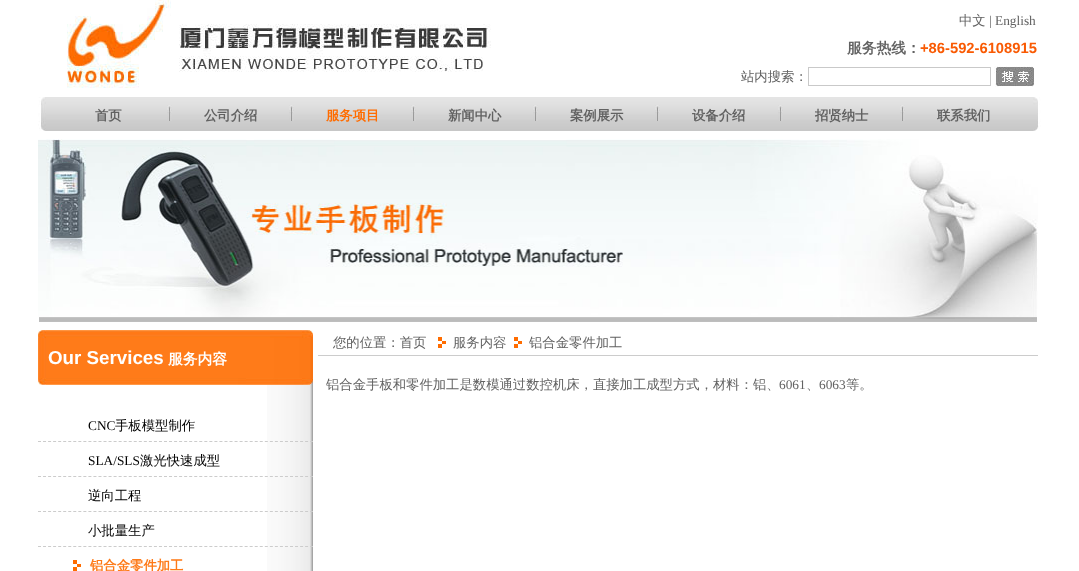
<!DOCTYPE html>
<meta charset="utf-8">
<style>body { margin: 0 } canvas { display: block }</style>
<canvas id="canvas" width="1079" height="571"></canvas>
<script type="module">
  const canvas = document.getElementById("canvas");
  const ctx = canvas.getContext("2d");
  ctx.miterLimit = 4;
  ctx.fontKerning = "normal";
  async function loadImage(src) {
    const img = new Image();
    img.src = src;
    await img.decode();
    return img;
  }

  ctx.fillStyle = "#ffffff";
  ctx.fillRect(0, 0, 1079, 571);
  ctx.drawImage(await loadImage("img1.png"), 67, 0, 424, 88);
  ctx.font = "500 13.35px WenQuanYi Zen Hei";
  ctx.fillStyle = "#626262";
  ctx.fillText("中文", 959, 25);
  ctx.font = "13.35px Liberation Serif";
  ctx.fillText("| English", 989, 25);
  ctx.font = "bold 14.75px WenQuanYi Zen Hei";
  ctx.fillText("服务热线：", 847, 53);
  ctx.font = "bold 14.75px Liberation Sans";
  ctx.fillStyle = "#f95a03";
  ctx.fillText("+86-592-6108915", 920, 53);
  ctx.font = "500 13.35px WenQuanYi Zen Hei";
  ctx.fillStyle = "#626262";
  ctx.fillText("站内搜索：", 741, 81);
  ctx.strokeStyle = "#c9c9c9";
  ctx.strokeRect(808.5, 67.5, 182, 18);
  ctx.drawImage(await loadImage("img2.png"), 994, 66, 40, 21);
  ctx.drawImage(await loadImage("img3.png"), 46, 97, 987, 34);
  ctx.drawImage(await loadImage("img4.png"), 38, 97, 8, 34);
  ctx.font = "bold 13.35px WenQuanYi Zen Hei";
  ctx.fillText("首页", 95, 120);
  ctx.drawImage(await loadImage("img5.png"), 167, 105, 5, 16);
  ctx.fillText("公司介绍", 204, 120);
  ctx.drawImage(await loadImage("img5.png"), 289, 105, 5, 16);
  ctx.fillStyle = "#ff6c00";
  ctx.fillText("服务项目", 326, 120);
  ctx.drawImage(await loadImage("img5.png"), 411, 105, 5, 16);
  ctx.fillStyle = "#626262";
  ctx.fillText("新闻中心", 448, 120);
  ctx.drawImage(await loadImage("img5.png"), 533, 105, 5, 16);
  ctx.fillText("案例展示", 570, 120);
  ctx.drawImage(await loadImage("img5.png"), 655, 105, 5, 16);
  ctx.fillText("设备介绍", 692, 120);
  ctx.drawImage(await loadImage("img5.png"), 778, 105, 5, 16);
  ctx.fillText("招贤纳士", 815, 120);
  ctx.drawImage(await loadImage("img5.png"), 900, 105, 5, 16);
  ctx.fillText("联系我们", 937, 120);
  ctx.drawImage(await loadImage("img6.png"), 1033, 97, 8, 34);
  ctx.drawImage(await loadImage("img7.png"), 38, 139, 1000, 178);
  ctx.drawImage(await loadImage("img8.png"), 39, 317, 998, 5);
  ctx.drawImage(await loadImage("img9.png"), 267, 385, 46, 186);
  ctx.drawImage(await loadImage("img10.png"), 38, 330, 275, 55);
  ctx.font = "bold 18.75px Liberation Sans";
  ctx.fillStyle = "#ffffff";
  ctx.fillText("Our Services", 48, 364);
  ctx.font = "bold 14.75px WenQuanYi Zen Hei";
  ctx.fillText("服务内容", 168, 364);
  ctx.beginPath();
  ctx.moveTo(38, 441.5);
  ctx.lineTo(313, 441.5);
  ctx.strokeStyle = "#cccccc";
  ctx.setLineDash([3, 2.04]);
  ctx.stroke();
  ctx.font = "13.35px Liberation Serif";
  ctx.fillStyle = "#000000";
  ctx.fillText("CNC", 88, 430);
  ctx.font = "500 13.35px WenQuanYi Zen Hei";
  ctx.fillText("手板模型制作", 115, 430);
  ctx.beginPath();
  ctx.moveTo(38, 476.5);
  ctx.lineTo(313, 476.5);
  ctx.stroke();
  ctx.font = "13.35px Liberation Serif";
  ctx.fillText("SLA/SLS", 88, 465);
  ctx.font = "500 13.35px WenQuanYi Zen Hei";
  ctx.fillText("激光快速成型", 140, 465);
  ctx.beginPath();
  ctx.moveTo(38, 511.5);
  ctx.lineTo(313, 511.5);
  ctx.stroke();
  ctx.fillText("逆向工程", 88, 500);
  ctx.beginPath();
  ctx.moveTo(38, 546.5);
  ctx.lineTo(313, 546.5);
  ctx.stroke();
  ctx.fillText("小批量生产", 88, 535);
  ctx.drawImage(await loadImage("img11.png"), 73, 560, 8, 11);
  ctx.font = "bold 13.35px WenQuanYi Zen Hei";
  ctx.fillStyle = "#fe7a18";
  ctx.fillText("铝合金零件加工", 90, 570);
  ctx.fillStyle = "#cccccc";
  ctx.fillRect(318, 355, 720, 1);
  ctx.font = "500 13.35px WenQuanYi Zen Hei";
  ctx.fillStyle = "#626262";
  ctx.fillText("您的位置：首页", 333, 347);
  ctx.drawImage(await loadImage("img11.png"), 438, 337, 8, 11);
  ctx.fillText("服务内容", 453, 347);
  ctx.drawImage(await loadImage("img11.png"), 514, 337, 8, 11);
  ctx.fillText("铝合金零件加工", 529, 347);
  ctx.fillText("铝合金手板和零件加工是数模通过数控机床，直接加工成型方式，材料：铝、", 326, 389);
  ctx.font = "13.35px Liberation Serif";
  ctx.fillText("6061", 779, 389);
  ctx.font = "500 13.35px WenQuanYi Zen Hei";
  ctx.fillText("、", 806, 389);
  ctx.font = "13.35px Liberation Serif";
  ctx.fillText("6063", 819, 389);
  ctx.font = "500 13.35px WenQuanYi Zen Hei";
  ctx.fillText("等。", 846, 389);
</script>
